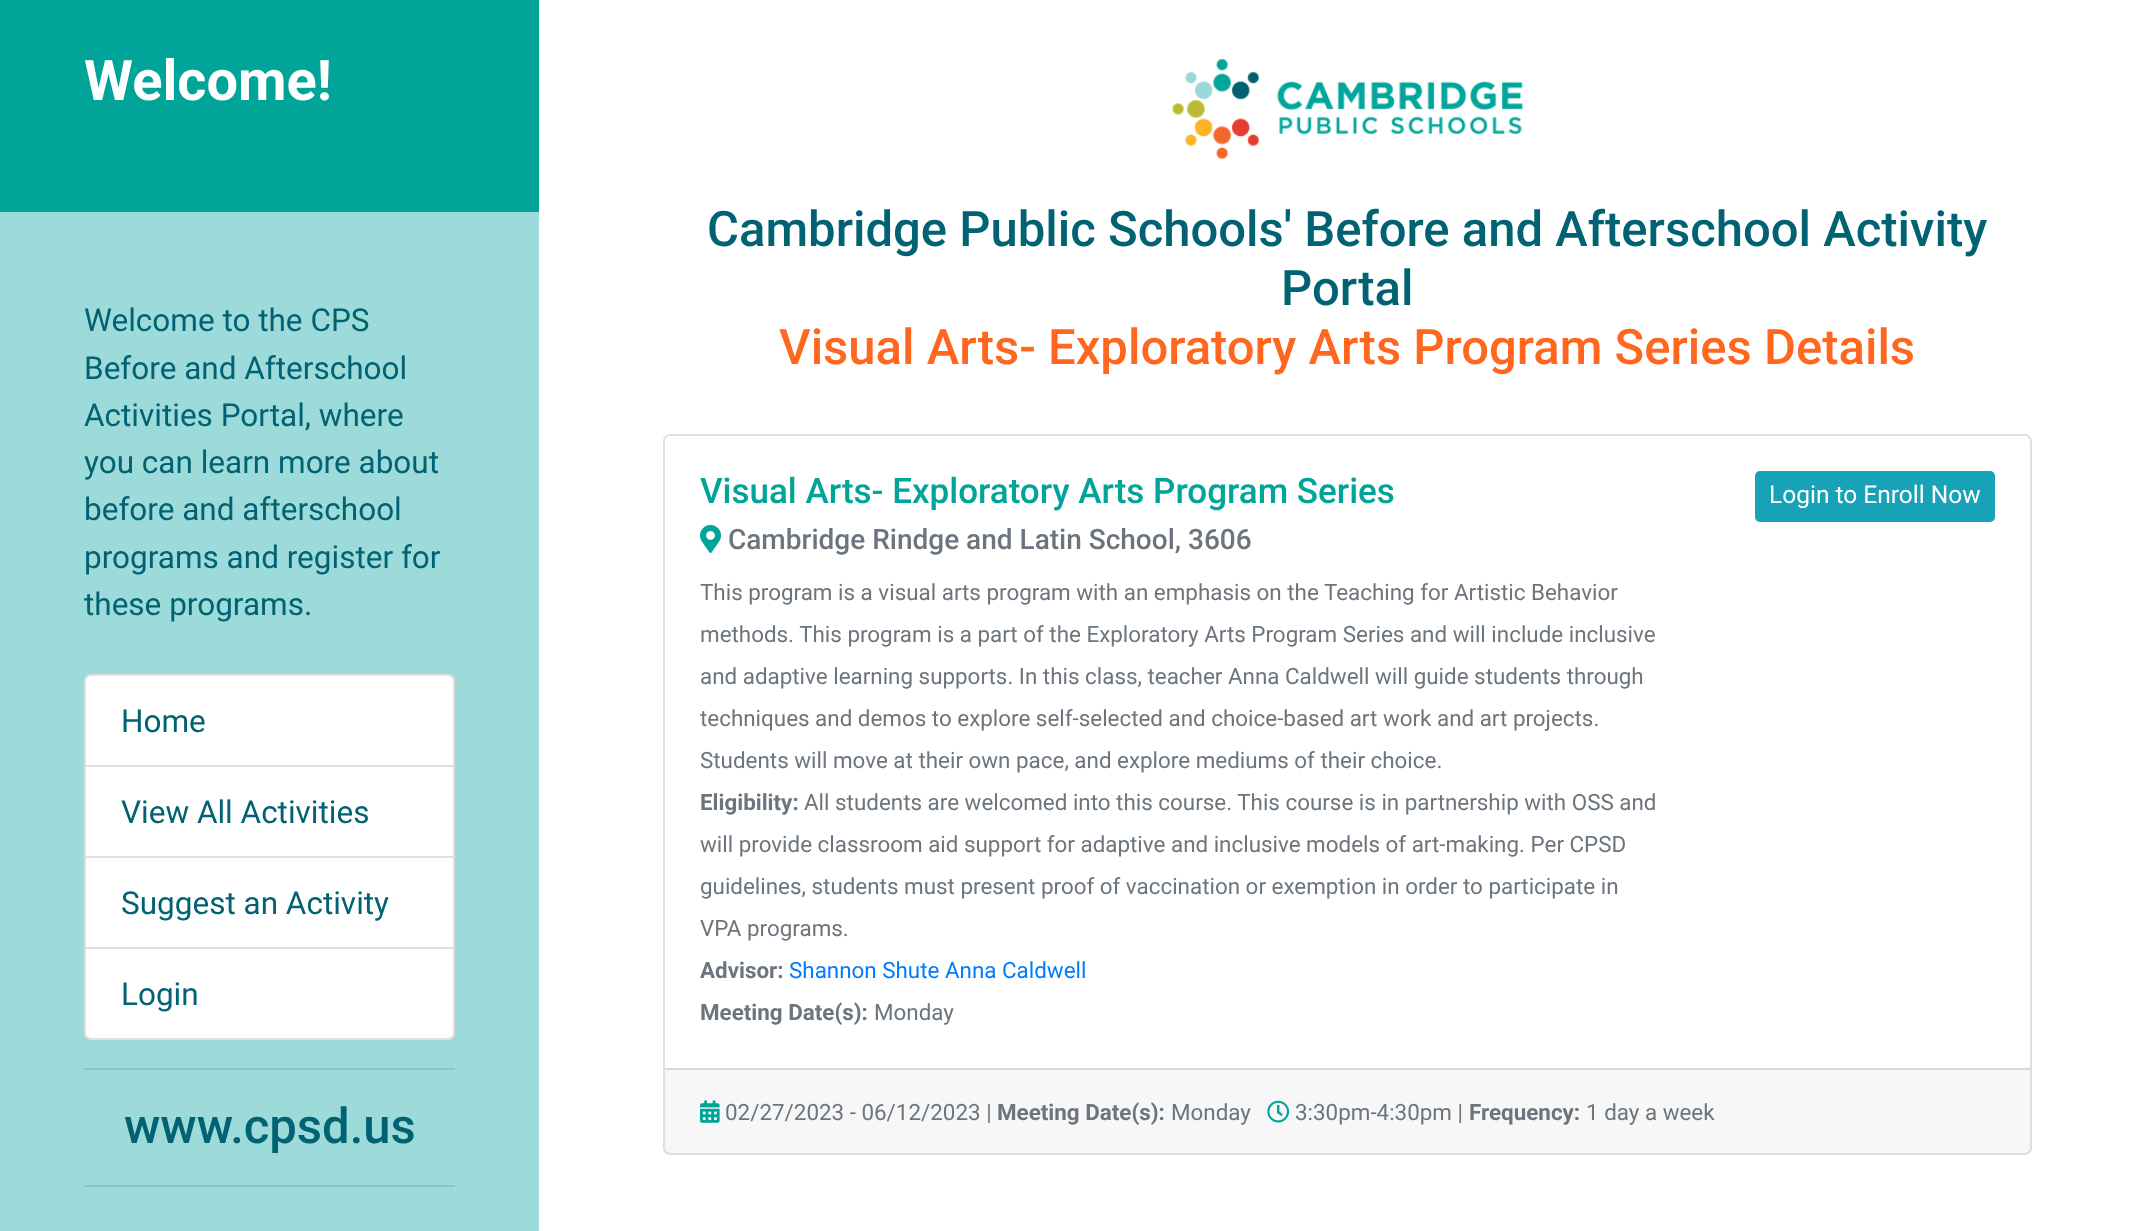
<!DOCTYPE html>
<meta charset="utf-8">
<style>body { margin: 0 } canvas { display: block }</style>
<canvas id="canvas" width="2156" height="1231"></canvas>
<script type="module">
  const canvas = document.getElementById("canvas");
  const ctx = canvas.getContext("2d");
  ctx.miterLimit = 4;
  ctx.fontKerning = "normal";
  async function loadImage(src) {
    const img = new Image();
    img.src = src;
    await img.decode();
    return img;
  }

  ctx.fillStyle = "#ffffff";
  ctx.fillRect(0, 0, 2156, 1231);
  ctx.fillStyle = "#00a499";
  ctx.fillRect(0, 0, 539, 212);
  ctx.font = "bold 56px Roboto";
  ctx.fillStyle = "#ffffff";
  ctx.fillText("Welcome!", 84, 100);
  ctx.fillStyle = "#9cdbd9";
  ctx.fillRect(0, 212, 539, 1019);
  ctx.font = "31.5px Roboto";
  ctx.fillStyle = "#006272";
  ctx.fillText("Welcome to the CPS", 84, 331);
  ctx.fillText("Before and Afterschool", 84, 379);
  ctx.fillText("Activities Portal, where", 84, 426);
  ctx.fillText("you can learn more about", 84, 473);
  ctx.fillText("before and afterschool", 84, 520);
  ctx.fillText("programs and register for", 84, 568);
  ctx.fillText("these programs.", 84, 615);
  ctx.fillStyle = "#ffffff";
  ctx.beginPath();
  ctx.roundRect(84, 674, 371, 93, [7, 7, 0, 0]);
  ctx.fill();
  ctx.beginPath();
  ctx.roundRect(85, 675, 369, 91, [6, 6, 0, 0]);
  ctx.strokeStyle = "rgba(0, 0, 0, 0.12)";
  ctx.lineWidth = 2;
  ctx.stroke();
  ctx.fillStyle = "#006272";
  ctx.fillText("Home", 121, 732);
  ctx.fillStyle = "#ffffff";
  ctx.beginPath();
  ctx.rect(85, 766, 369, 91);
  ctx.fill();
  ctx.strokeStyle = "#dfdfdf";
  ctx.stroke();
  ctx.fillStyle = "#006272";
  ctx.fillText("View All Activities", 121, 823);
  ctx.fillStyle = "#ffffff";
  ctx.beginPath();
  ctx.rect(85, 857, 369, 91);
  ctx.fill();
  ctx.stroke();
  ctx.fillStyle = "#006272";
  ctx.fillText("Suggest an Activity", 121, 914);
  ctx.fillStyle = "#ffffff";
  ctx.beginPath();
  ctx.roundRect(84, 947, 371, 93, [0, 0, 7, 7]);
  ctx.fill();
  ctx.beginPath();
  ctx.roundRect(85, 948, 369, 91, [0, 0, 6, 6]);
  ctx.strokeStyle = "rgba(0, 0, 0, 0.12)";
  ctx.stroke();
  ctx.fillStyle = "#006272";
  ctx.fillText("Login", 121, 1005);
  ctx.fillStyle = "#8cc5c3";
  ctx.fillRect(84, 1068, 371, 2);
  ctx.font = "500 49px Roboto";
  ctx.fillStyle = "#006272";
  ctx.fillText("www.cpsd.us", 124, 1143);
  ctx.fillStyle = "#8cc5c3";
  ctx.fillRect(84, 1185, 371, 2);
  ctx.drawImage(await loadImage("img1.png"), 1172, 59, 351, 100);
  ctx.fillStyle = "#006272";
  ctx.fillText("Cambridge Public Schools' Before and Afterschool Activity", 707, 246);
  ctx.fillText("Portal", 1281, 305);
  ctx.fillStyle = "#ff671f";
  ctx.fillText("Visual Arts- Exploratory Arts Program Series Details", 779, 364);
  ctx.beginPath();
  ctx.roundRect(664, 435, 1367, 719, 6);
  ctx.strokeStyle = "#dfdfdf";
  ctx.stroke();
  ctx.font = "500 35px Roboto";
  ctx.fillStyle = "#00a499";
  ctx.fillText("Visual Arts- Exploratory Arts Program Series", 700, 503);
  ctx.drawImage(await loadImage("img2.png"), 700, 525, 21, 28);
  ctx.font = "500 28px Roboto";
  ctx.fillStyle = "#6c757d";
  ctx.fillText("Cambridge Rindge and Latin School, 3606", 728, 549);
  ctx.font = "22.4px Roboto";
  ctx.fillText("This program is a visual arts program with an emphasis on the Teaching for Artistic Behavior", 700, 600);
  ctx.fillText("methods. This program is a part of the Exploratory Arts Program Series and will include inclusive", 700, 642);
  ctx.fillText("and adaptive learning supports. In this class, teacher Anna Caldwell will guide students through", 700, 684);
  ctx.fillText("techniques and demos to explore self-selected and choice-based art work and art projects.", 700, 726);
  ctx.fillText("Students will move at their own pace, and explore mediums of their choice.", 700, 768);
  ctx.font = "bold 22.4px Roboto";
  ctx.fillText("Eligibility:", 700, 810);
  ctx.font = "22.4px Roboto";
  ctx.fillText("All students are welcomed into this course. This course is in partnership with OSS and", 804, 810);
  ctx.fillText("will provide classroom aid support for adaptive and inclusive models of art-making. Per CPSD", 700, 852);
  ctx.fillText("guidelines, students must present proof of vaccination or exemption in order to participate in", 700, 894);
  ctx.fillText("VPA programs.", 700, 936);
  ctx.font = "bold 22.4px Roboto";
  ctx.fillText("Advisor:", 700, 978);
  ctx.font = "22.4px Roboto";
  ctx.fillStyle = "#007bff";
  ctx.fillText("Shannon Shute Anna Caldwell", 789, 978);
  ctx.font = "bold 22.4px Roboto";
  ctx.fillStyle = "#6c757d";
  ctx.fillText("Meeting Date(s):", 700, 1020);
  ctx.font = "22.4px Roboto";
  ctx.fillText("Monday", 874, 1020);
  ctx.fillStyle = "#17a2b8";
  ctx.beginPath();
  ctx.roundRect(1755, 471, 240, 51, 5);
  ctx.fill();
  ctx.font = "24.5px Roboto";
  ctx.fillStyle = "#ffffff";
  ctx.fillText("Login to Enroll Now", 1769, 503);
  ctx.fillStyle = "rgba(0, 0, 0, 0.03)";
  ctx.fillRect(665, 1070, 1365, 83);
  ctx.fillStyle = "#d8d8d8";
  ctx.fillRect(665, 1068, 1365, 2);
  ctx.drawImage(await loadImage("img3.png"), 700, 1100, 20, 23);
  ctx.font = "22.4px Roboto";
  ctx.fillStyle = "#6c757d";
  ctx.fillText("02/27/2023 - 06/12/2023 |", 725, 1120);
  ctx.font = "bold 22.4px Roboto";
  ctx.fillText("Meeting Date(s):", 997, 1120);
  ctx.font = "22.4px Roboto";
  ctx.fillText("Monday", 1171, 1120);
  ctx.drawImage(await loadImage("img4.png"), 1267, 1100, 23, 23);
  ctx.fillText("3:30pm-4:30pm |", 1295, 1120);
  ctx.font = "bold 22.4px Roboto";
  ctx.fillText("Frequency:", 1469, 1120);
  ctx.font = "22.4px Roboto";
  ctx.fillText("1 day a week", 1586, 1120);
</script>
